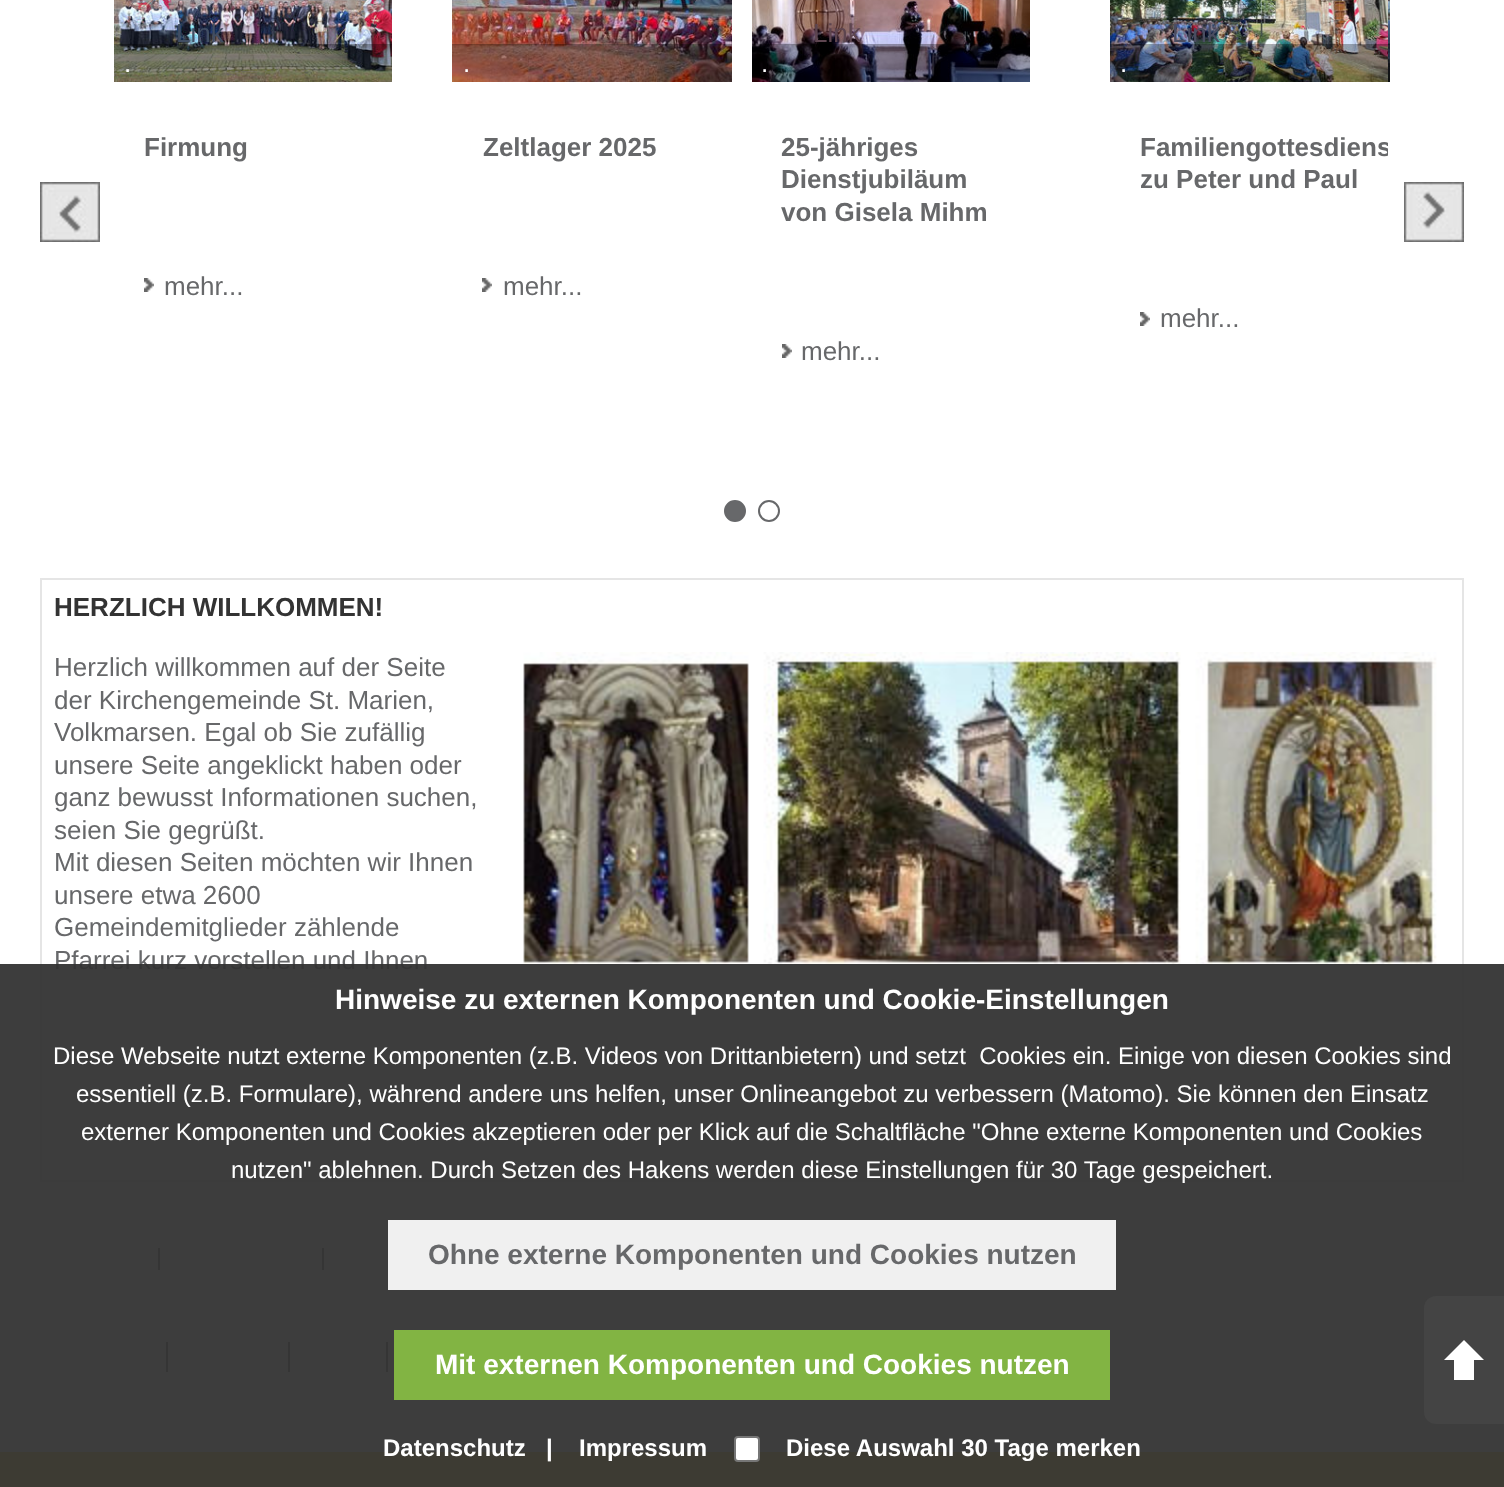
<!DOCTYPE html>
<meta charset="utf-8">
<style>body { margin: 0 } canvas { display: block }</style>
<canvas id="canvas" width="1504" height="1487"></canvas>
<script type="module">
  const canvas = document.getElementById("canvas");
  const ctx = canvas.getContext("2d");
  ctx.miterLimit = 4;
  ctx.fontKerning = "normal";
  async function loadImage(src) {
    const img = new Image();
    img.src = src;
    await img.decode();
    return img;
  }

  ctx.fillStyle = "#ffffff";
  ctx.fillRect(0, 0, 1504, 1487);
  ctx.fillStyle = "#f3d93b";
  ctx.fillRect(0, 1452, 1504, 35);
  ctx.drawImage(await loadImage("img1.png"), 40, 182, 60, 60);
  ctx.drawImage(await loadImage("img2.png"), 114, 0, 278, 82);
  ctx.font = "26px Liberation Sans";
  ctx.fillStyle = "#414e63";
  ctx.fillText("Link", 176, 42);
  ctx.fillStyle = "rgba(0, 0, 0, 0.3)";
  ctx.fillRect(114, 44, 278, 38);
  ctx.fillStyle = "#ffffff";
  ctx.fillText(".", 124, 72);
  ctx.font = "bold 26px Liberation Sans";
  ctx.fillStyle = "#67686a";
  ctx.fillText("Firmung", 144, 156);
  ctx.drawImage(await loadImage("img3.png"), 144, 278, 10, 14);
  ctx.font = "26px Liberation Sans";
  ctx.fillText("mehr...", 164, 295);
  ctx.drawImage(await loadImage("img4.png"), 452, 0, 280, 82);
  ctx.fillStyle = "rgba(0, 0, 0, 0.3)";
  ctx.fillRect(452, 44, 280, 38);
  ctx.fillStyle = "#ffffff";
  ctx.fillText(".", 463, 72);
  ctx.font = "bold 26px Liberation Sans";
  ctx.fillStyle = "#67686a";
  ctx.fillText("Zeltlager 2025", 483, 156);
  ctx.drawImage(await loadImage("img3.png"), 482, 278, 10, 14);
  ctx.font = "26px Liberation Sans";
  ctx.fillText("mehr...", 503, 295);
  ctx.drawImage(await loadImage("img5.png"), 752, 0, 278, 82);
  ctx.fillStyle = "#5d454f";
  ctx.fillText("Link", 813, 42);
  ctx.fillStyle = "rgba(0, 0, 0, 0.3)";
  ctx.fillRect(752, 44, 278, 38);
  ctx.fillStyle = "#ffffff";
  ctx.fillText(".", 761, 72);
  ctx.font = "bold 26px Liberation Sans";
  ctx.fillStyle = "#67686a";
  ctx.fillText("25-jähriges", 781, 156);
  ctx.fillText("Dienstjubiläum", 781, 188);
  ctx.fillText("von Gisela Mihm", 781, 221);
  ctx.drawImage(await loadImage("img3.png"), 782, 344, 10, 14);
  ctx.font = "26px Liberation Sans";
  ctx.fillText("mehr...", 801, 360);
  ctx.drawImage(await loadImage("img6.png"), 1110, 0, 278, 82);
  ctx.fillStyle = "#4a4d61";
  ctx.fillText("Link", 1172, 42);
  ctx.fillStyle = "rgba(0, 0, 0, 0.3)";
  ctx.fillRect(1110, 44, 278, 38);
  ctx.fillStyle = "#ffffff";
  ctx.fillText(".", 1120, 72);
  ctx.save();
  ctx.beginPath();
  ctx.rect(1110, 0, 278, 438);
  ctx.clip();
  ctx.font = "bold 26px Liberation Sans";
  ctx.fillStyle = "#67686a";
  ctx.fillText("Familiengottesdiens", 1140, 156);
  ctx.restore();
  ctx.font = "bold 26px Liberation Sans";
  ctx.fillStyle = "#67686a";
  ctx.fillText("zu Peter und Paul", 1140, 188);
  ctx.drawImage(await loadImage("img3.png"), 1140, 312, 10, 14);
  ctx.font = "26px Liberation Sans";
  ctx.fillText("mehr...", 1160, 327);
  ctx.drawImage(await loadImage("img7.png"), 1388, 0, 2, 82);
  ctx.fillStyle = "rgba(0, 0, 0, 0.3)";
  ctx.fillRect(1388, 44, 2, 38);
  ctx.drawImage(await loadImage("img8.png"), 1404, 182, 60, 60);
  ctx.fillStyle = "#67686a";
  ctx.beginPath();
  ctx.arc(735, 511, 10, 0, Math.PI * 2);
  ctx.fill();
  ctx.strokeStyle = "#67686a";
  ctx.lineWidth = 2;
  ctx.stroke();
  ctx.beginPath();
  ctx.arc(769, 511, 10, 0, Math.PI * 2);
  ctx.stroke();
  ctx.strokeStyle = "#e5e5e5";
  ctx.strokeRect(41, 579, 1422, 602);
  ctx.font = "bold 26px Liberation Sans";
  ctx.fillStyle = "#333333";
  ctx.fillText("HERZLICH WILLKOMMEN!", 54, 616);
  ctx.font = "26px Liberation Sans";
  ctx.fillStyle = "#67686a";
  ctx.fillText("Herzlich willkommen auf der Seite", 54, 676);
  ctx.fillText("der Kirchengemeinde St. Marien,", 54, 709);
  ctx.fillText("Volkmarsen. Egal ob Sie zufällig", 54, 741);
  ctx.fillText("unsere Seite angeklickt haben oder", 54, 774);
  ctx.fillText("ganz bewusst Informationen suchen,", 54, 806);
  ctx.fillText("seien Sie gegrüßt.", 54, 839);
  ctx.fillText("Mit diesen Seiten möchten wir Ihnen", 54, 871);
  ctx.fillText("unsere etwa 2600", 54, 904);
  ctx.fillText("Gemeindemitglieder zählende", 54, 936);
  ctx.fillText("Pfarrei kurz vorstellen und Ihnen", 54, 969);
  ctx.drawImage(await loadImage("img9.png"), 523, 652, 914, 320);
  ctx.fillStyle = "#68676b";
  ctx.fillRect(158, 1248, 2, 22);
  ctx.fillRect(322, 1248, 2, 22);
  ctx.fillStyle = "#68686a";
  ctx.fillRect(166, 1342, 2, 30);
  ctx.fillRect(288, 1342, 2, 30);
  ctx.fillRect(386, 1342, 2, 30);
  ctx.fillStyle = "rgba(51, 51, 51, 0.95)";
  ctx.fillRect(0, 964, 1504, 523);
  ctx.font = "bold 28px Liberation Sans";
  ctx.fillStyle = "#ffffff";
  ctx.fillText("Hinweise zu externen Komponenten und Cookie-Einstellungen", 335, 1009);
  ctx.font = "24px Liberation Sans";
  ctx.fillText("Diese Webseite nutzt externe Komponenten (z.B. Videos von Drittanbietern) und setzt  Cookies ein. Einige von diesen Cookies sind", 53, 1064);
  ctx.fillText("essentiell (z.B. Formulare), während andere uns helfen, unser Onlineangebot zu verbessern (Matomo). Sie können den Einsatz", 76, 1102);
  ctx.fillText("externer Komponenten und Cookies akzeptieren oder per Klick auf die Schaltfläche \"Ohne externe Komponenten und Cookies", 81, 1140);
  ctx.fillText("nutzen\" ablehnen. Durch Setzen des Hakens werden diese Einstellungen für 30 Tage gespeichert.", 231, 1178);
  ctx.fillStyle = "#f0f0f0";
  ctx.fillRect(388, 1220, 728, 70);
  ctx.font = "bold 28px Liberation Sans";
  ctx.fillStyle = "#67686a";
  ctx.fillText("Ohne externe Komponenten und Cookies nutzen", 428, 1264);
  ctx.fillStyle = "#82b443";
  ctx.fillRect(394, 1330, 716, 70);
  ctx.fillStyle = "#ffffff";
  ctx.fillText("Mit externen Komponenten und Cookies nutzen", 435, 1374);
  ctx.font = "bold 24px Liberation Sans";
  ctx.fillText("Datenschutz", 383, 1456);
  ctx.fillText("|", 546, 1456);
  ctx.fillText("Impressum", 579, 1456);
  ctx.beginPath();
  ctx.roundRect(735, 1437, 24, 24, 3);
  ctx.fill();
  ctx.strokeStyle = "#767676";
  ctx.stroke();
  ctx.fillText("Diese Auswahl 30 Tage merken", 786, 1456);
  ctx.fillStyle = "#444444";
  ctx.beginPath();
  ctx.roundRect(1424, 1296, 80, 128, [12, 0, 0, 12]);
  ctx.fill();
  ctx.fillStyle = "#ffffff";
  ctx.beginPath();
  ctx.moveTo(1484, 1360);
  ctx.lineTo(1444, 1360);
  ctx.lineTo(1464, 1340);
  ctx.closePath();
  ctx.fill();
  ctx.fillRect(1454, 1360, 20, 20);
</script>
